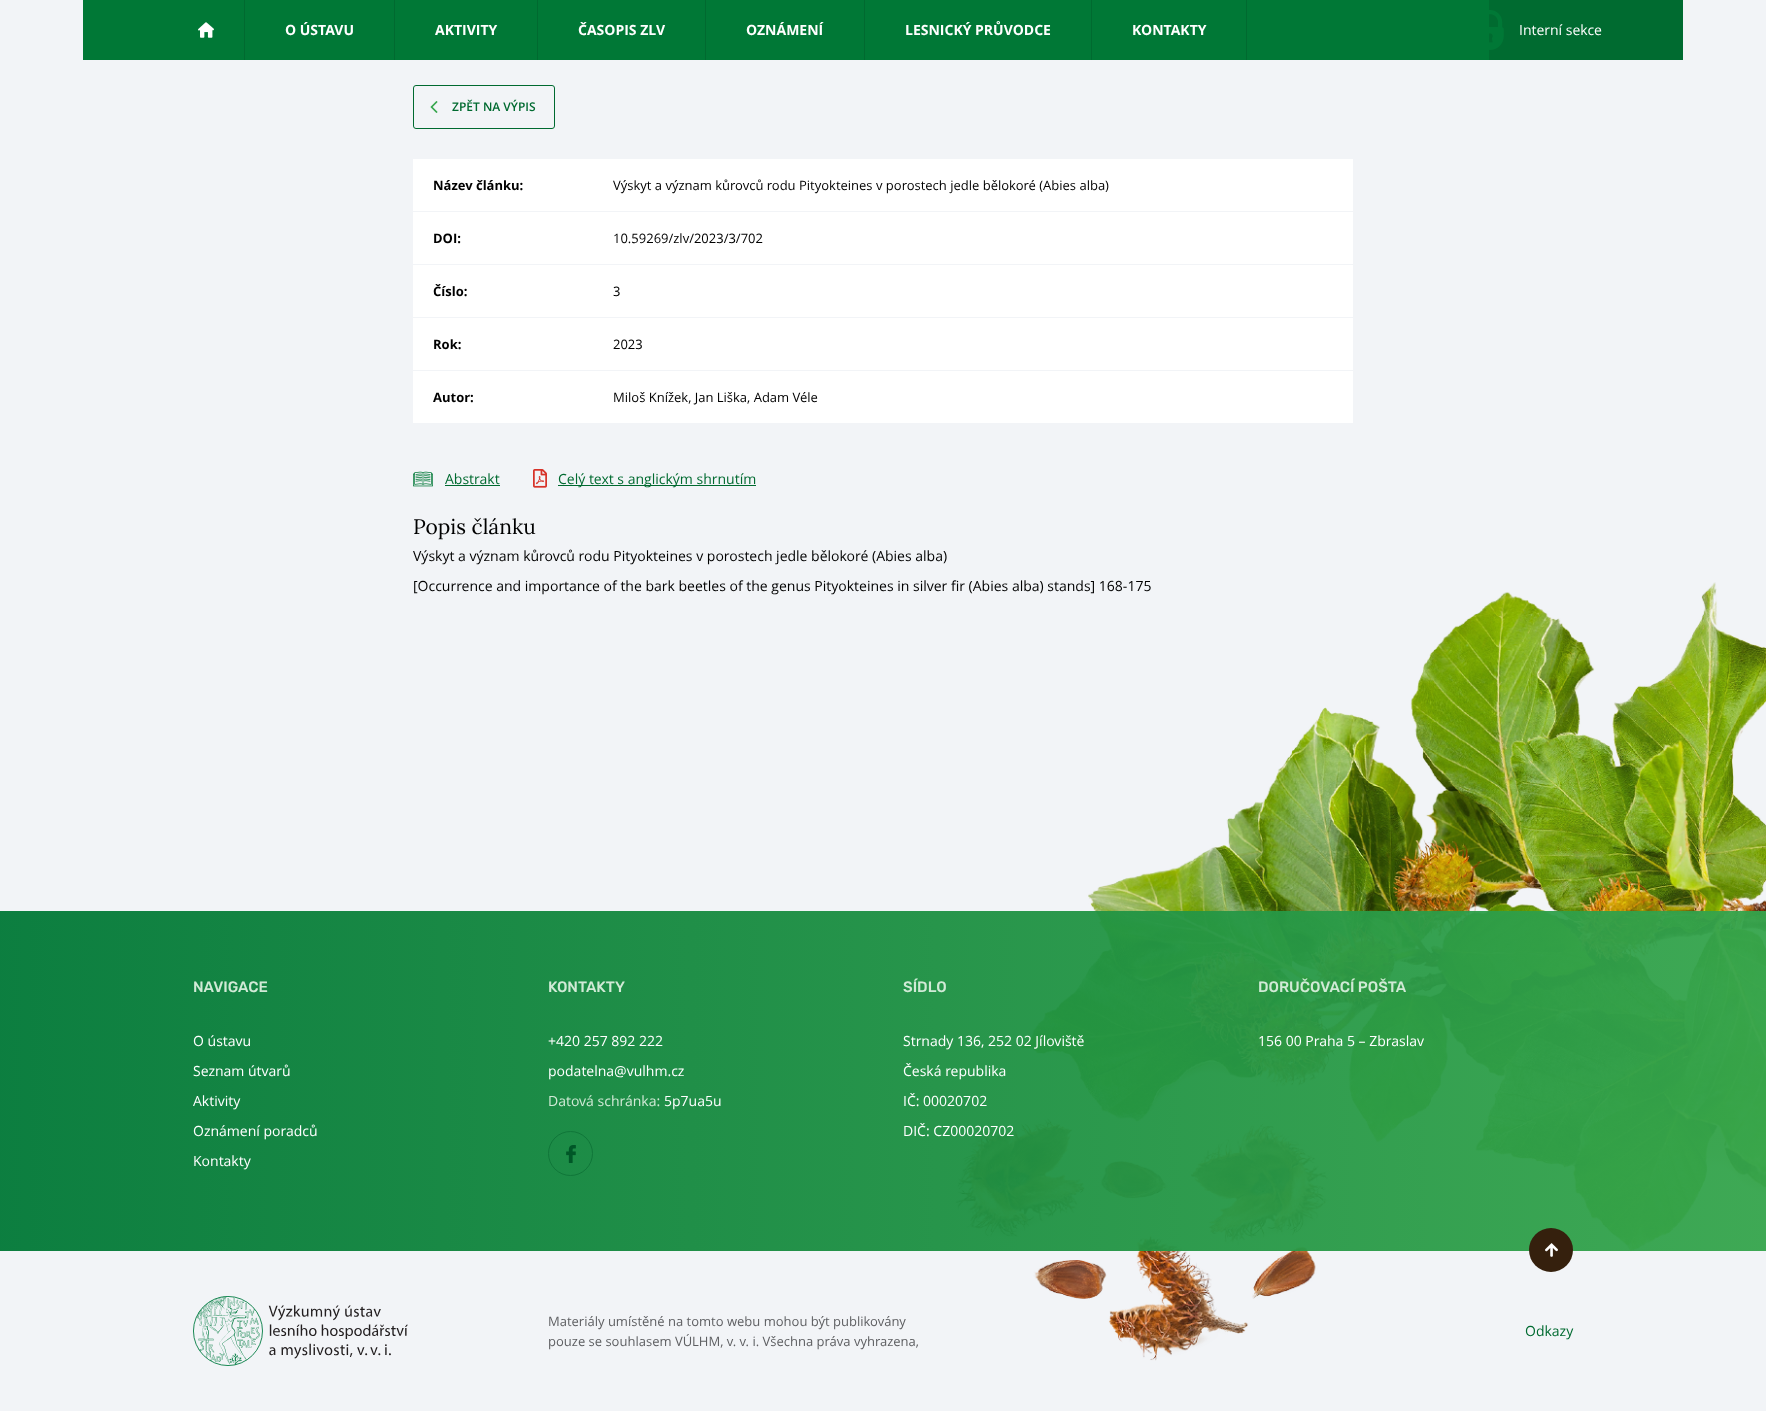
<!DOCTYPE html>
<meta charset="utf-8">
<style>body { margin: 0 } canvas { display: block }</style>
<canvas id="canvas" width="1766" height="1411"></canvas>
<script type="module">
  const canvas = document.getElementById("canvas");
  const ctx = canvas.getContext("2d");
  ctx.miterLimit = 4;
  ctx.fontKerning = "normal";
  async function loadImage(src) {
    const img = new Image();
    img.src = src;
    await img.decode();
    return img;
  }
  let gradient;

  ctx.fillStyle = "#f2f4f7";
  ctx.fillRect(0, 0, 1766, 1411);
  ctx.fillStyle = "#007836";
  ctx.fillRect(83, 0, 1406, 60);
  ctx.fillStyle = "#006a30";
  ctx.fillRect(244, 0, 1, 60);
  ctx.drawImage(await loadImage("img1.png"), 198, 22, 16, 16);
  ctx.fillRect(394, 0, 1, 60);
  ctx.font = "bold 14px Open Sans";
  ctx.fillStyle = "#ffffff";
  ctx.fillText("O ÚSTAVU", 285, 35);
  ctx.fillStyle = "#006a30";
  ctx.fillRect(537, 0, 1, 60);
  ctx.fillStyle = "#ffffff";
  ctx.fillText("AKTIVITY", 435, 35);
  ctx.fillStyle = "#006a30";
  ctx.fillRect(705, 0, 1, 60);
  ctx.fillStyle = "#ffffff";
  ctx.fillText("ČASOPIS ZLV", 578, 35);
  ctx.fillStyle = "#006a30";
  ctx.fillRect(864, 0, 1, 60);
  ctx.fillStyle = "#ffffff";
  ctx.fillText("OZNÁMENÍ", 746, 35);
  ctx.fillStyle = "#006a30";
  ctx.fillRect(1091, 0, 1, 60);
  ctx.fillStyle = "#ffffff";
  ctx.fillText("LESNICKÝ PRŮVODCE", 905, 35);
  ctx.fillStyle = "#006a30";
  ctx.fillRect(1246, 0, 1, 60);
  ctx.fillStyle = "#ffffff";
  ctx.fillText("KONTAKTY", 1132, 35);
  ctx.fillStyle = "#006b30";
  ctx.fillRect(1489, 0, 194, 60);
  ctx.drawImage(await loadImage("img2.png"), 1489, 10, 15, 40);
  ctx.font = "14px Open Sans";
  ctx.fillStyle = "#ffffff";
  ctx.fillText("Interní sekce", 1519, 35);
  ctx.beginPath();
  ctx.roundRect(413.5, 85.5, 141, 43, 2.5);
  ctx.strokeStyle = "#006a30";
  ctx.stroke();
  ctx.drawImage(await loadImage("img3.png"), 430, 101, 8, 12);
  ctx.font = "600 12px Open Sans";
  ctx.fillStyle = "#006a30";
  ctx.fillText("ZPĚT NA VÝPIS", 452, 111);
  ctx.fillStyle = "#ffffff";
  ctx.fillRect(413, 159, 940, 52);
  ctx.font = "bold 13px Open Sans";
  ctx.fillStyle = "#000000";
  ctx.fillText("Název článku:", 433, 190);
  ctx.font = "13px Open Sans";
  ctx.fillText("Výskyt a význam kůrovců rodu Pityokteines v porostech jedle bělokoré (Abies alba)", 613, 190);
  ctx.fillStyle = "#ffffff";
  ctx.fillRect(413, 212, 940, 52);
  ctx.font = "bold 13px Open Sans";
  ctx.fillStyle = "#000000";
  ctx.fillText("DOI:", 433, 243);
  ctx.font = "13px Open Sans";
  ctx.fillText("10.59269/zlv/2023/3/702", 613, 243);
  ctx.fillStyle = "#ffffff";
  ctx.fillRect(413, 265, 940, 52);
  ctx.font = "bold 13px Open Sans";
  ctx.fillStyle = "#000000";
  ctx.fillText("Číslo:", 433, 296);
  ctx.font = "13px Open Sans";
  ctx.fillText("3", 613, 296);
  ctx.fillStyle = "#ffffff";
  ctx.fillRect(413, 318, 940, 52);
  ctx.font = "bold 13px Open Sans";
  ctx.fillStyle = "#000000";
  ctx.fillText("Rok:", 433, 349);
  ctx.font = "13px Open Sans";
  ctx.fillText("2023", 613, 349);
  ctx.fillStyle = "#ffffff";
  ctx.fillRect(413, 371, 940, 52);
  ctx.font = "bold 13px Open Sans";
  ctx.fillStyle = "#000000";
  ctx.fillText("Autor:", 433, 402);
  ctx.font = "13px Open Sans";
  ctx.fillText("Miloš Knížek, Jan Liška, Adam Véle", 613, 402);
  ctx.drawImage(await loadImage("img4.png"), 413, 471, 20, 16);
  ctx.font = "14px Open Sans";
  ctx.fillStyle = "#006a30";
  ctx.fillText("Abstrakt", 445, 484);
  ctx.fillRect(445, 485, 55, 1);
  ctx.drawImage(await loadImage("img5.png"), 533, 469, 14, 19);
  ctx.fillRect(558, 485, 198, 1);
  ctx.fillText("Celý text s anglickým shrnutím", 558, 484);
  ctx.font = "21px Lora";
  ctx.fillStyle = "#000000";
  ctx.fillText("Popis článku", 413, 534);
  ctx.font = "14px Open Sans";
  ctx.fillText("Výskyt a význam kůrovců rodu Pityokteines v porostech jedle bělokoré (Abies alba)", 413, 561);
  ctx.fillText("[Occurrence and importance of the bark beetles of the genus Pityokteines in silver fir (Abies alba) stands] 168-175", 413, 591);
  ctx.drawImage(await loadImage("img7.png"), 955, 582, 811, 779);
  gradient = ctx.createLinearGradient(0, 1081, 1766, 1081);
  gradient.addColorStop(0, "rgba(2, 0, 36, 0.95)");
  gradient.addColorStop(0, "rgba(0, 120, 54, 0.95)");
  gradient.addColorStop(1, "rgba(53, 165, 76, 0.95)");
  ctx.fillStyle = gradient;
  ctx.fillRect(0, 911, 1766, 340);
  ctx.font = "500 15px Rubik";
  ctx.fillStyle = "#d1ead6";
  ctx.fillText("NAVIGACE", 193, 992);
  ctx.font = "14px Open Sans";
  ctx.fillStyle = "#ffffff";
  ctx.fillText("O ústavu", 193, 1046);
  ctx.fillText("Seznam útvarů", 193, 1076);
  ctx.fillText("Aktivity", 193, 1106);
  ctx.fillText("Oznámení poradců", 193, 1136);
  ctx.fillText("Kontakty", 193, 1166);
  ctx.font = "500 15px Rubik";
  ctx.fillStyle = "#d1ead6";
  ctx.fillText("KONTAKTY", 548, 992);
  ctx.font = "14px Open Sans";
  ctx.fillStyle = "#ffffff";
  ctx.fillText("+420 257 892 222", 548, 1046);
  ctx.fillText("podatelna@vulhm.cz", 548, 1076);
  ctx.fillStyle = "#d1ead6";
  ctx.fillText("Datová schránka:", 548, 1106);
  ctx.fillStyle = "#ffffff";
  ctx.fillText("5p7ua5u", 664, 1106);
  ctx.drawImage(await loadImage("img6.png"), 566, 1145, 10, 18);
  ctx.beginPath();
  ctx.arc(570.5, 1153.5, 22, 0, Math.PI * 2);
  ctx.strokeStyle = "#107639";
  ctx.stroke();
  ctx.font = "500 15px Rubik";
  ctx.fillStyle = "#d1ead6";
  ctx.fillText("SÍDLO", 903, 992);
  ctx.font = "14px Open Sans";
  ctx.fillStyle = "#ffffff";
  ctx.fillText("Strnady 136, 252 02 Jíloviště", 903, 1046);
  ctx.fillText("Česká republika", 903, 1076);
  ctx.fillText("IČ: 00020702", 903, 1106);
  ctx.fillText("DIČ: CZ00020702", 903, 1136);
  ctx.font = "500 15px Rubik";
  ctx.fillStyle = "#d1ead6";
  ctx.fillText("DORUČOVACÍ POŠTA", 1258, 992);
  ctx.font = "14px Open Sans";
  ctx.fillStyle = "#ffffff";
  ctx.fillText("156 00 Praha 5 – Zbraslav", 1258, 1046);
  ctx.fillStyle = "#35200d";
  ctx.beginPath();
  ctx.arc(1551, 1250, 22, 0, Math.PI * 2);
  ctx.fill();
  ctx.drawImage(await loadImage("img8.png"), 1545, 1243, 13, 14);
  ctx.drawImage(await loadImage("img9.png"), 193, 1296, 215, 70);
  ctx.font = "13px Open Sans";
  ctx.fillStyle = "#5e5f62";
  ctx.fillText("Materiály umístěné na tomto webu mohou být publikovány", 548, 1326);
  ctx.fillText("pouze se souhlasem VÚLHM, v. v. i. Všechna práva vyhrazena,", 548, 1346);
  ctx.font = "14px Open Sans";
  ctx.fillStyle = "#006a30";
  ctx.fillText("Odkazy", 1525, 1336);
</script>
